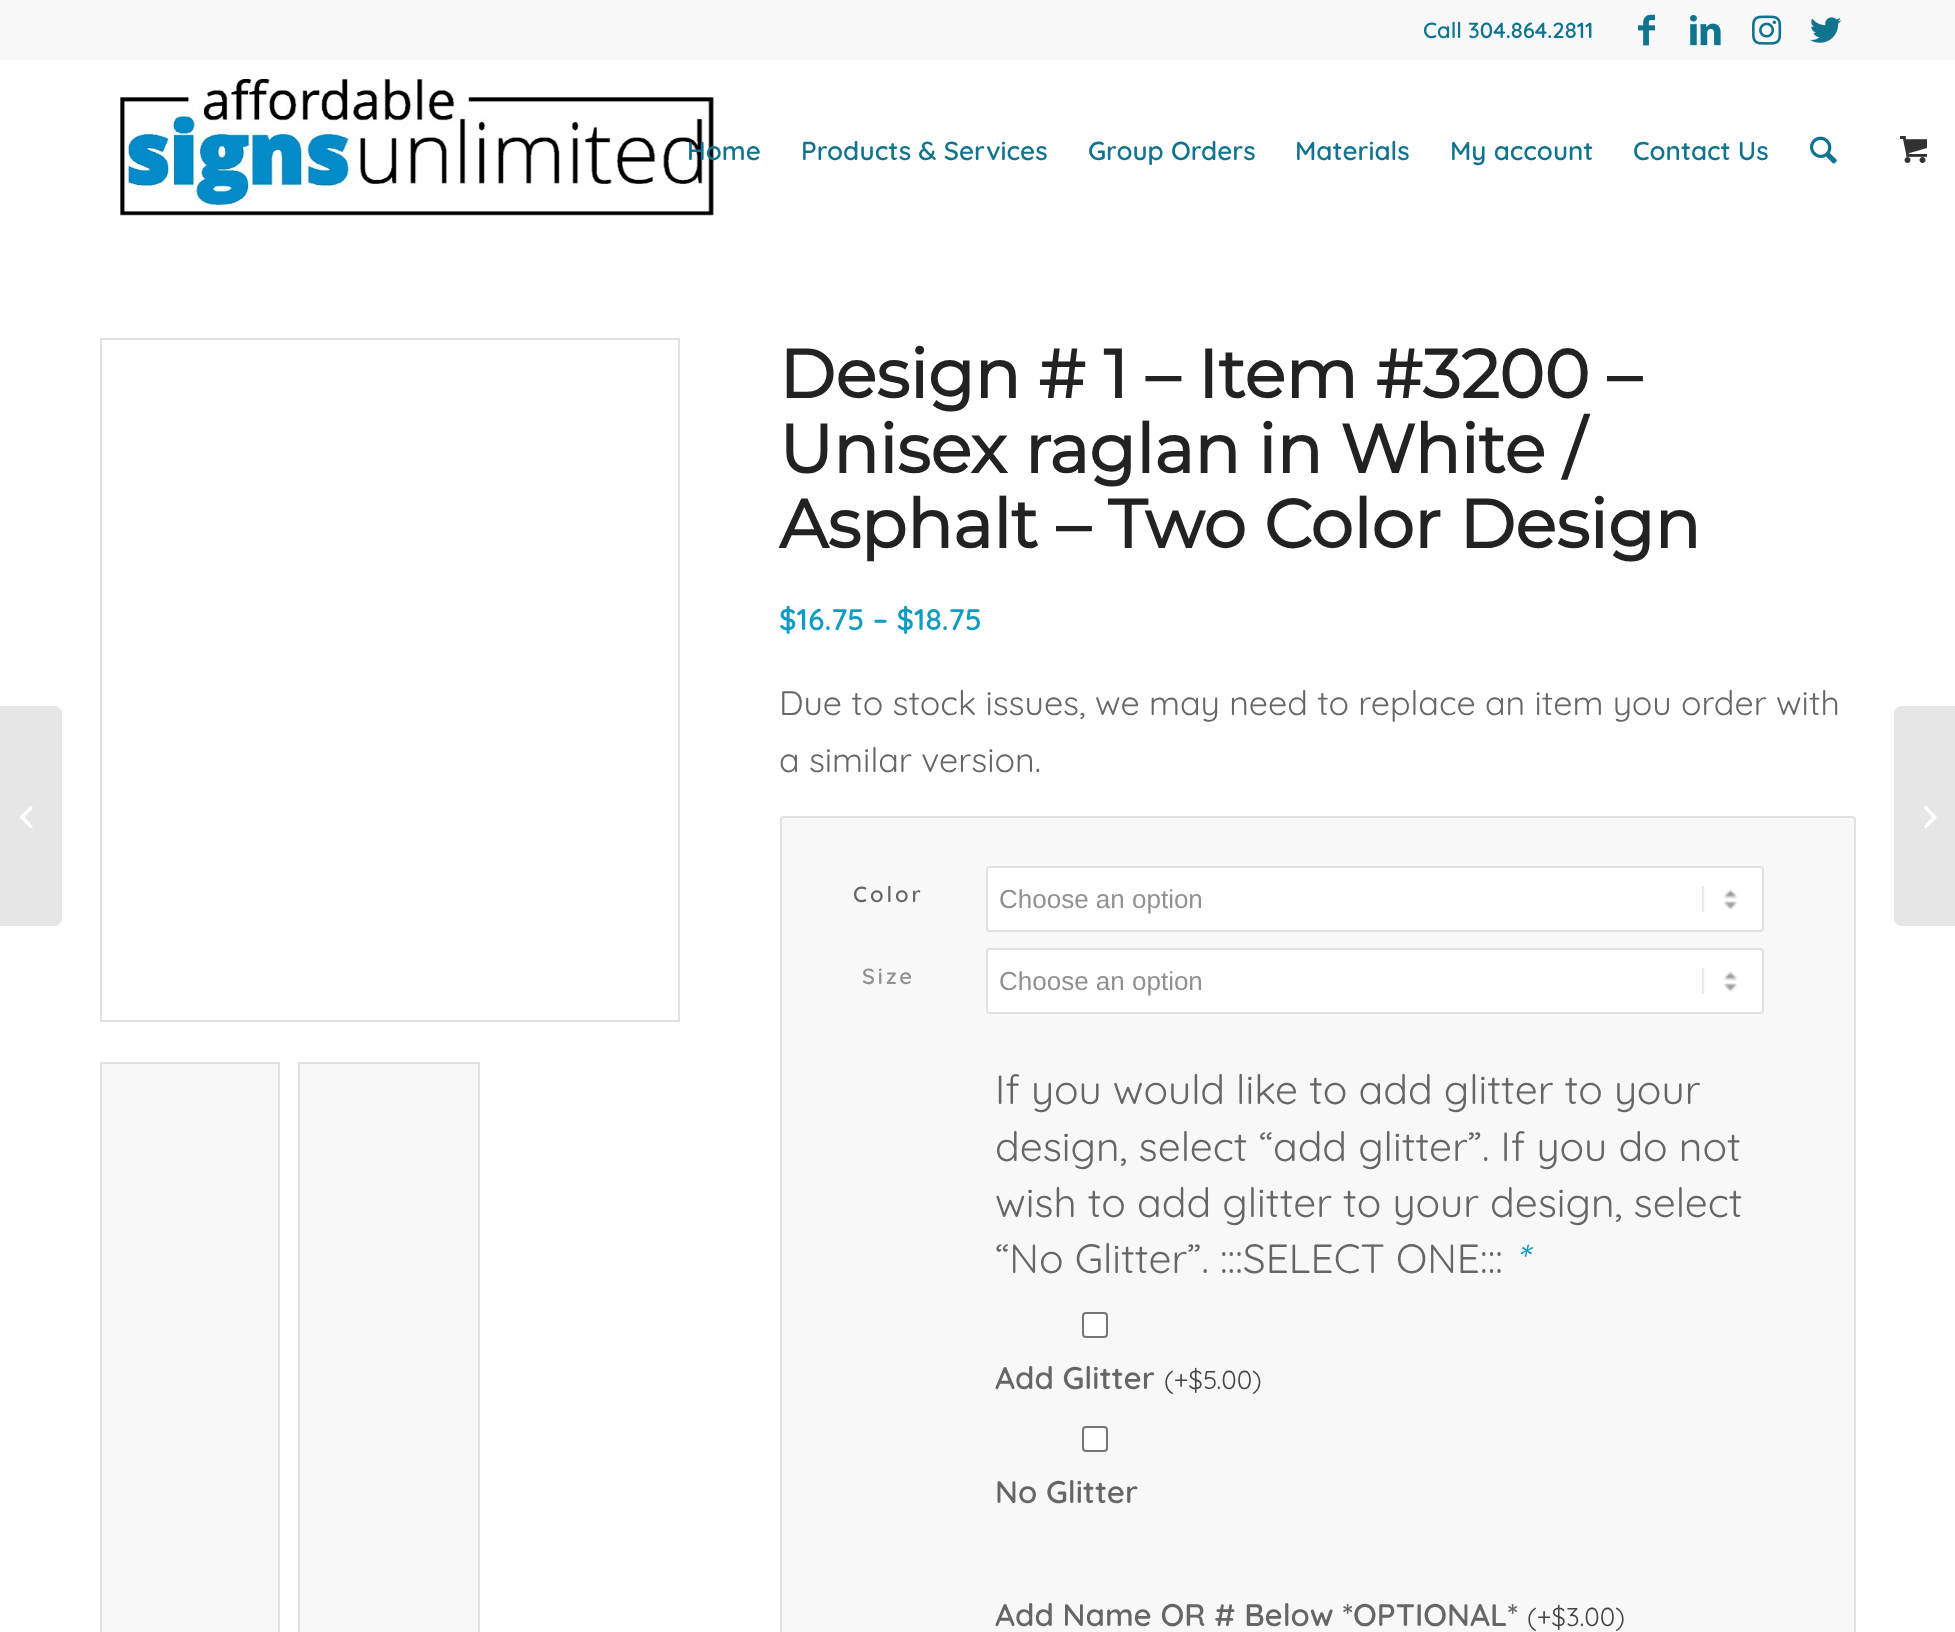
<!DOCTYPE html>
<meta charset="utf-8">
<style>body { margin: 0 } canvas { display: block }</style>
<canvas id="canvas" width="1955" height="1632"></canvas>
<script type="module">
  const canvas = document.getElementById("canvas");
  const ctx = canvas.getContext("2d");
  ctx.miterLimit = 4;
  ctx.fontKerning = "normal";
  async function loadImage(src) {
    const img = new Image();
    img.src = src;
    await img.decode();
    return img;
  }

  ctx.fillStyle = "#ffffff";
  ctx.fillRect(0, 0, 1955, 1632);
  ctx.fillStyle = "#f8f8f8";
  ctx.fillRect(0, 0, 1955, 60);
  ctx.font = "600 22px Quicksand";
  ctx.fillStyle = "#11748f";
  ctx.fillText("Call 304.864.2811", 1423, 38);
  ctx.drawImage(await loadImage("img1.png"), 1638, 14, 17, 32);
  ctx.drawImage(await loadImage("img2.png"), 1690, 15, 31, 31);
  ctx.drawImage(await loadImage("img3.png"), 1752, 15, 30, 30);
  ctx.drawImage(await loadImage("img4.png"), 1810, 17, 32, 26);
  ctx.drawImage(await loadImage("img5.png"), 120, 78, 594, 138);
  ctx.font = "600 26px Quicksand";
  ctx.fillText("Home", 687, 160);
  ctx.fillText("Products & Services", 801, 160);
  ctx.fillText("Group Orders", 1088, 160);
  ctx.fillText("Materials", 1295, 160);
  ctx.fillText("My account", 1450, 160);
  ctx.fillText("Contact Us", 1633, 160);
  ctx.drawImage(await loadImage("img6.png"), 1810, 136, 27, 28);
  ctx.drawImage(await loadImage("img7.png"), 1900, 136, 27, 27);
  ctx.fillStyle = "#e6e6e6";
  ctx.beginPath();
  ctx.roundRect(0, 706, 62, 220, [0, 8, 8, 0]);
  ctx.fill();
  ctx.drawImage(await loadImage("img8.png"), 20, 806, 13, 22);
  ctx.strokeStyle = "#e1e1e1";
  ctx.lineWidth = 2;
  ctx.strokeRect(101, 339, 578, 682);
  ctx.fillStyle = "#f8f8f8";
  ctx.beginPath();
  ctx.rect(101, 1063, 178, 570);
  ctx.fill();
  ctx.stroke();
  ctx.beginPath();
  ctx.rect(299, 1063, 180, 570);
  ctx.fill();
  ctx.stroke();
  ctx.font = "bold 68px Montserrat";
  ctx.fillStyle = "#222222";
  ctx.fillText("Design # 1 – Item #3200 –", 779, 398);
  ctx.fillText("Unisex raglan in White /", 779, 473);
  ctx.fillText("Asphalt – Two Color Design", 779, 548);
  ctx.font = "600 30px Quicksand";
  ctx.fillStyle = "#109bc5";
  ctx.fillText("$16.75 – $18.75", 779, 630);
  ctx.font = "34px Quicksand";
  ctx.fillStyle = "#666666";
  ctx.fillText("Due to stock issues, we may need to replace an item you order with", 779, 715);
  ctx.fillText("a similar version.", 779, 772);
  ctx.fillStyle = "#f8f8f8";
  ctx.beginPath();
  ctx.roundRect(781, 817, 1074, 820, 3);
  ctx.fill();
  ctx.stroke();
  ctx.letterSpacing = "3px";
  ctx.font = "600 22px Quicksand";
  ctx.fillStyle = "#666666";
  ctx.fillText("Color", 853, 902);
  ctx.fillStyle = "#ffffff";
  ctx.beginPath();
  ctx.roundRect(986, 866, 778, 66, 4);
  ctx.fill();
  ctx.drawImage(await loadImage("img9.png"), 1702, 886, 35, 26);
  ctx.beginPath();
  ctx.roundRect(987, 867, 776, 64, 3);
  ctx.stroke();
  ctx.letterSpacing = "0px";
  ctx.font = "26px Liberation Sans";
  ctx.fillStyle = "#919191";
  ctx.fillText("Choose an option", 999, 908);
  ctx.letterSpacing = "3px";
  ctx.font = "600 22px Quicksand";
  ctx.fillText("Size", 862, 984);
  ctx.fillStyle = "#ffffff";
  ctx.beginPath();
  ctx.roundRect(986, 948, 778, 66, 4);
  ctx.fill();
  ctx.drawImage(await loadImage("img9.png"), 1702, 968, 35, 26);
  ctx.beginPath();
  ctx.roundRect(987, 949, 776, 64, 3);
  ctx.stroke();
  ctx.letterSpacing = "0px";
  ctx.font = "26px Liberation Sans";
  ctx.fillStyle = "#919191";
  ctx.fillText("Choose an option", 999, 990);
  ctx.font = "40.75px Quicksand";
  ctx.fillStyle = "#666666";
  ctx.fillText("If you would like to add glitter to your", 995, 1104);
  ctx.fillText("design, select “add glitter”. If you do not", 995, 1161);
  ctx.fillText("wish to add glitter to your design, select", 995, 1217);
  ctx.fillText("“No Glitter”. :::SELECT ONE:::", 995, 1273);
  ctx.font = "italic 40.75px Quicksand";
  ctx.fillStyle = "#109bc5";
  ctx.fillText("*", 1515, 1273);
  ctx.fillStyle = "#ffffff";
  ctx.beginPath();
  ctx.roundRect(1083, 1313, 24, 24, 3);
  ctx.fill();
  ctx.strokeStyle = "#767676";
  ctx.stroke();
  ctx.font = "600 31.25px Quicksand";
  ctx.fillStyle = "#666666";
  ctx.fillText("Add Glitter", 995, 1389);
  ctx.font = "26px Quicksand";
  ctx.fillStyle = "#444444";
  ctx.fillText("(+$5.00)", 1164, 1389);
  ctx.fillStyle = "#ffffff";
  ctx.beginPath();
  ctx.roundRect(1083, 1427, 24, 24, 3);
  ctx.fill();
  ctx.stroke();
  ctx.font = "600 31.25px Quicksand";
  ctx.fillStyle = "#666666";
  ctx.fillText("No Glitter", 995, 1503);
  ctx.fillText("Add Name OR # Below *OPTIONAL*", 995, 1626);
  ctx.font = "26px Quicksand";
  ctx.fillStyle = "#444444";
  ctx.fillText("(+$3.00)", 1527, 1626);
  ctx.fillStyle = "#e6e6e6";
  ctx.beginPath();
  ctx.moveTo(1902, 706);
  ctx.lineTo(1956, 706);
  ctx.lineTo(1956, 926);
  ctx.lineTo(1902, 926);
  ctx.bezierCurveTo(1897.5, 926, 1894, 922.5, 1894, 918);
  ctx.lineTo(1894, 714);
  ctx.bezierCurveTo(1894, 709.5, 1897.5, 706, 1902, 706);
  ctx.closePath();
  ctx.fill();
  ctx.drawImage(await loadImage("img10.png"), 1924, 806, 13, 23);
</script>
